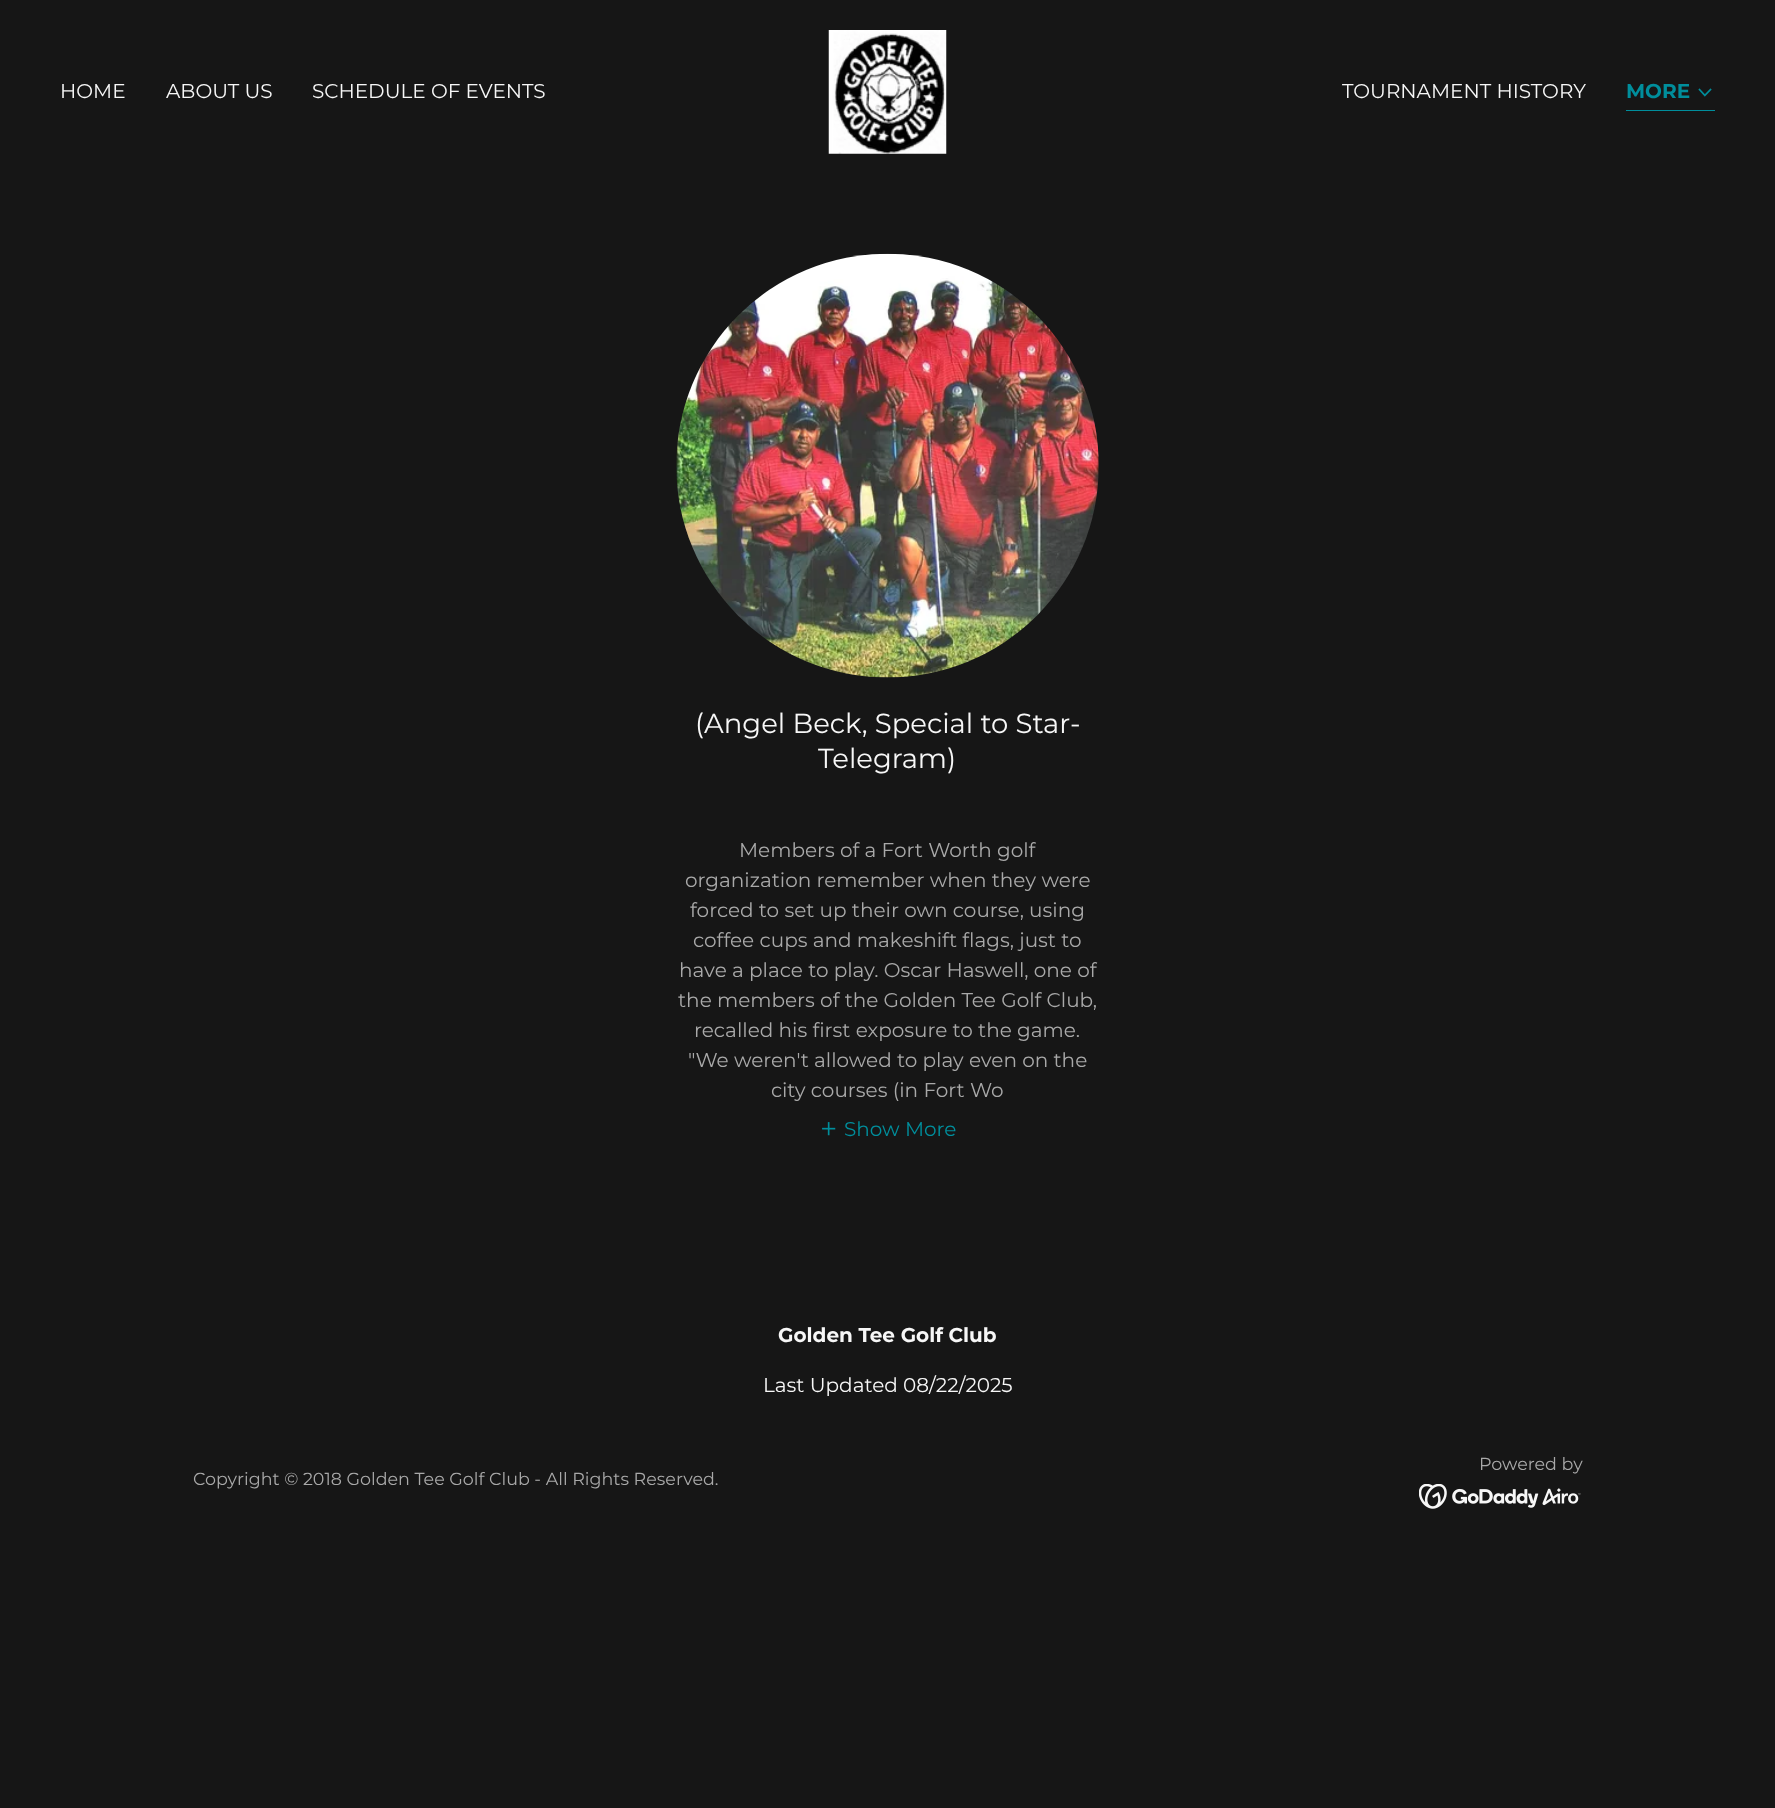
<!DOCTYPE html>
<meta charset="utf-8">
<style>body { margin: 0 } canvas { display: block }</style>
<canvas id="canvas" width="1775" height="1808"></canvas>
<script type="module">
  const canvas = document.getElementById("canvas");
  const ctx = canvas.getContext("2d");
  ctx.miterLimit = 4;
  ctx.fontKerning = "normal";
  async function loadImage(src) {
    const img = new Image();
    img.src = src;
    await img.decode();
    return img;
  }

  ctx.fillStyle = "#161616";
  ctx.fillRect(0, 0, 1775, 1808);
  ctx.font = "20px Montserrat";
  ctx.fillStyle = "#f7f7f7";
  ctx.fillText("HOME", 60, 98);
  ctx.fillText("ABOUT US", 166, 98);
  ctx.fillText("SCHEDULE OF EVENTS", 312, 98);
  ctx.drawImage(await loadImage("img1.png"), 828, 30, 119, 124);
  ctx.fillText("TOURNAMENT HISTORY", 1342, 98);
  ctx.fillStyle = "#008e9c";
  ctx.fillRect(1626, 110, 89, 1);
  ctx.font = "bold 20px Montserrat";
  ctx.fillText("MORE", 1626, 98);
  ctx.drawImage(await loadImage("img2.png"), 1698, 88, 14, 9);
  ctx.drawImage(await loadImage("img3.png"), 676, 253, 423, 425);
  ctx.font = "27.5px Montserrat";
  ctx.fillStyle = "#f7f7f7";
  ctx.fillText("(Angel Beck, Special to Star-", 695, 733);
  ctx.fillText("Telegram)", 818, 768);
  ctx.font = "20px Montserrat";
  ctx.fillStyle = "#a9a9a9";
  ctx.fillText("Members of a Fort Worth golf", 739, 857);
  ctx.fillText("organization remember when they were", 685, 887);
  ctx.fillText("forced to set up their own course, using", 690, 917);
  ctx.fillText("coffee cups and makeshift flags, just to", 693, 947);
  ctx.fillText("have a place to play. Oscar Haswell, one of", 679, 977);
  ctx.fillText("the members of the Golden Tee Golf Club,", 678, 1007);
  ctx.fillText("recalled his first exposure to the game.", 694, 1037);
  ctx.fillText("\"We weren't allowed to play even on the", 688, 1067);
  ctx.fillText("city courses (in Fort Wo", 771, 1097);
  ctx.drawImage(await loadImage("img4.png"), 822, 1122, 14, 14);
  ctx.fillStyle = "#008e9c";
  ctx.fillText("Show More", 844, 1136);
  ctx.font = "bold 20px Montserrat";
  ctx.fillStyle = "#f7f7f7";
  ctx.fillText("Golden Tee Golf Club", 778, 1342);
  ctx.font = "20px Montserrat";
  ctx.fillText("Last Updated 08/22/2025", 763, 1392);
  ctx.font = "17.5px Montserrat";
  ctx.fillStyle = "#a9a9a9";
  ctx.fillText("Powered by", 1479, 1470);
  ctx.drawImage(await loadImage("img5.png"), 1419, 1484, 162, 25);
  ctx.fillText("Copyright © 2018 Golden Tee Golf Club - All Rights Reserved.", 193, 1485);
</script>
